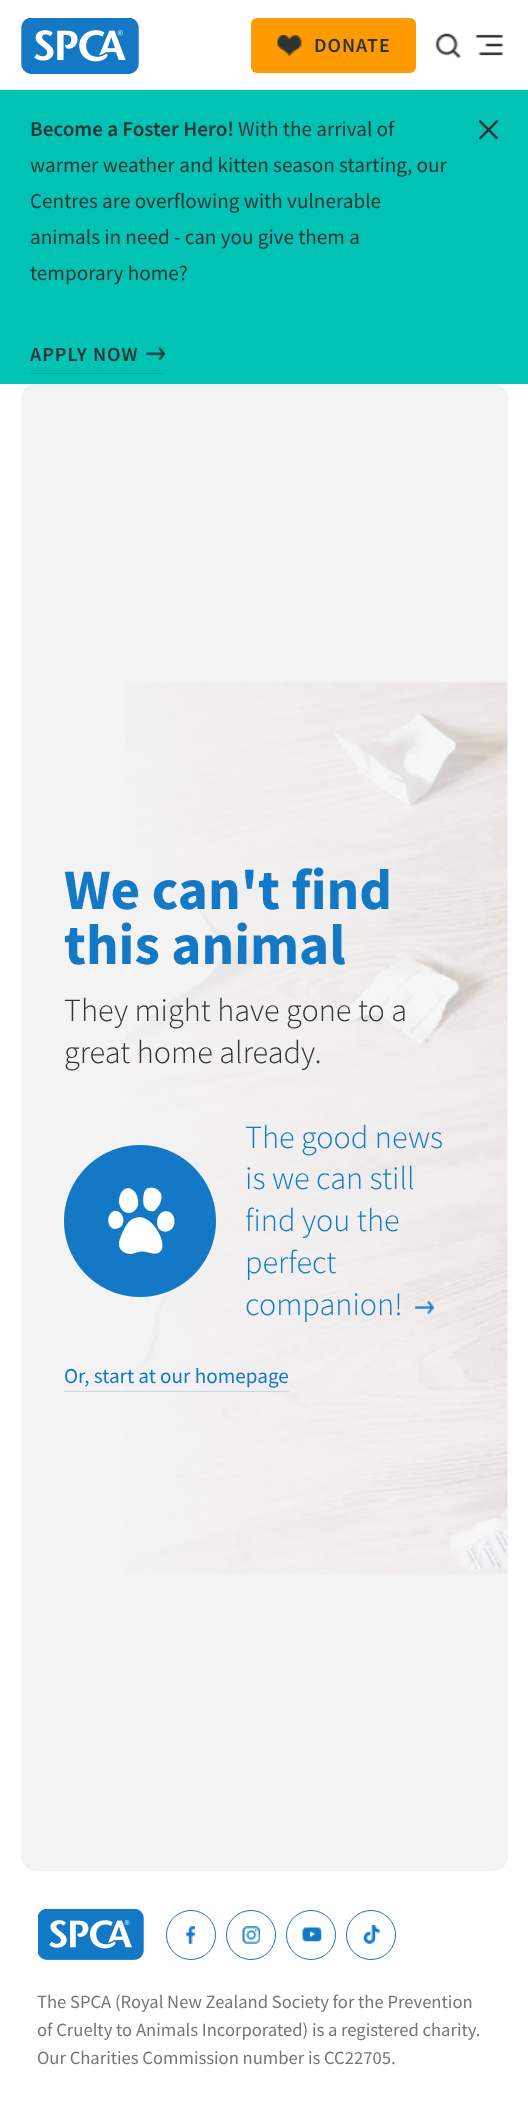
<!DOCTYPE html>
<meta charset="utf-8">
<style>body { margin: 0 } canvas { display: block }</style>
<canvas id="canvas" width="528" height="2124"></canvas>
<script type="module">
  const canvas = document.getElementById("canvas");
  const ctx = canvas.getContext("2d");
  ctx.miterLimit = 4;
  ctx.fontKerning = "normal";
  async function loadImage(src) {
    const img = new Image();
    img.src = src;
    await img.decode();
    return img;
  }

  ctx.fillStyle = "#ffffff";
  ctx.fillRect(0, 0, 528, 2124);
  ctx.drawImage(await loadImage("img1.png"), 21, 18, 118, 56);
  ctx.fillStyle = "#ff9b00";
  ctx.beginPath();
  ctx.roundRect(251, 18, 165, 55, 6);
  ctx.fill();
  ctx.drawImage(await loadImage("img2.png"), 277, 35, 25, 22);
  ctx.letterSpacing = "1px";
  ctx.font = "600 20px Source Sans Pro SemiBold";
  ctx.fillStyle = "#2f3336";
  ctx.fillText("DONATE", 314, 52);
  ctx.drawImage(await loadImage("img3.png"), 435, 33, 26, 25);
  ctx.drawImage(await loadImage("img4.png"), 475, 34, 29, 22);
  ctx.fillStyle = "#00c3b4";
  ctx.fillRect(0, 90, 528, 294);
  ctx.letterSpacing = "0px";
  ctx.font = "600 21.2px Source Sans Pro SemiBold";
  ctx.fillStyle = "#2f3336";
  ctx.fillText("Become a Foster Hero!", 30, 136);
  ctx.font = "21.2px Source Sans Pro";
  ctx.fillText("With the arrival of", 238, 136);
  ctx.fillText("warmer weather and kitten season starting, our", 30, 172);
  ctx.fillText("Centres are overflowing with vulnerable", 30, 208);
  ctx.fillText("animals in need - can you give them a", 30, 244);
  ctx.fillText("temporary home?", 30, 280);
  ctx.fillStyle = "#09a69b";
  ctx.fillRect(30, 373, 135, 1);
  ctx.letterSpacing = "1px";
  ctx.font = "600 20px Source Sans Pro SemiBold";
  ctx.fillStyle = "#2f3336";
  ctx.fillText("APPLY NOW", 30, 361);
  ctx.drawImage(await loadImage("img5.png"), 146, 347, 19, 13);
  ctx.drawImage(await loadImage("img6.png"), 479, 120, 20, 20);
  ctx.fillStyle = "#f3f3f3";
  ctx.beginPath();
  ctx.roundRect(21, 384, 487, 1487, 15);
  ctx.fill();
  ctx.drawImage(await loadImage("img7.png"), 125, 682, 383, 892);
  ctx.letterSpacing = "0px";
  ctx.font = "bold 57.25px Source Sans Pro";
  ctx.fillStyle = "#1378c6";
  ctx.fillText("We can't find", 64, 909);
  ctx.fillText("this animal", 64, 964);
  ctx.font = "300 32.25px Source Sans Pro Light";
  ctx.fillStyle = "#2f3336";
  ctx.fillText("They might have gone to a", 64, 1021);
  ctx.fillText("great home already.", 64, 1063);
  ctx.drawImage(await loadImage("img8.png"), 64, 1145, 152, 152);
  ctx.fillStyle = "#1378c6";
  ctx.fillText("The good news", 245, 1148);
  ctx.fillText("is we can still", 245, 1189);
  ctx.fillText("find you the", 245, 1231);
  ctx.fillText("perfect", 245, 1273);
  ctx.fillText("companion!", 245, 1315);
  ctx.drawImage(await loadImage("img9.png"), 415, 1301, 19, 13);
  ctx.font = "21.2px Source Sans Pro";
  ctx.fillText("Or, start at our homepage", 64, 1383);
  ctx.fillStyle = "rgba(19, 120, 198, 0.2)";
  ctx.fillRect(64, 1391, 225, 1);
  ctx.drawImage(await loadImage("img10.png"), 38, 1909, 106, 51);
  ctx.beginPath();
  ctx.arc(191, 1935, 24.5, 0, Math.PI * 2);
  ctx.strokeStyle = "#1378c6";
  ctx.stroke();
  ctx.drawImage(await loadImage("img11.png"), 186, 1926, 9, 18);
  ctx.beginPath();
  ctx.arc(251, 1935, 24.5, 0, Math.PI * 2);
  ctx.stroke();
  ctx.drawImage(await loadImage("img12.png"), 242, 1926, 18, 18);
  ctx.beginPath();
  ctx.arc(311, 1935, 24.5, 0, Math.PI * 2);
  ctx.stroke();
  ctx.drawImage(await loadImage("img13.png"), 302, 1927, 20, 15);
  ctx.beginPath();
  ctx.arc(371, 1935, 24.5, 0, Math.PI * 2);
  ctx.stroke();
  ctx.drawImage(await loadImage("img14.png"), 363, 1925, 18, 19);
  ctx.font = "18.6px Source Sans Pro";
  ctx.fillStyle = "#757575";
  ctx.fillText("The SPCA (Royal New Zealand Society for the Prevention", 37, 2008);
  ctx.fillText("of Cruelty to Animals Incorporated) is a registered charity.", 37, 2036);
  ctx.fillText("Our Charities Commission number is CC22705.", 37, 2064);
</script>
